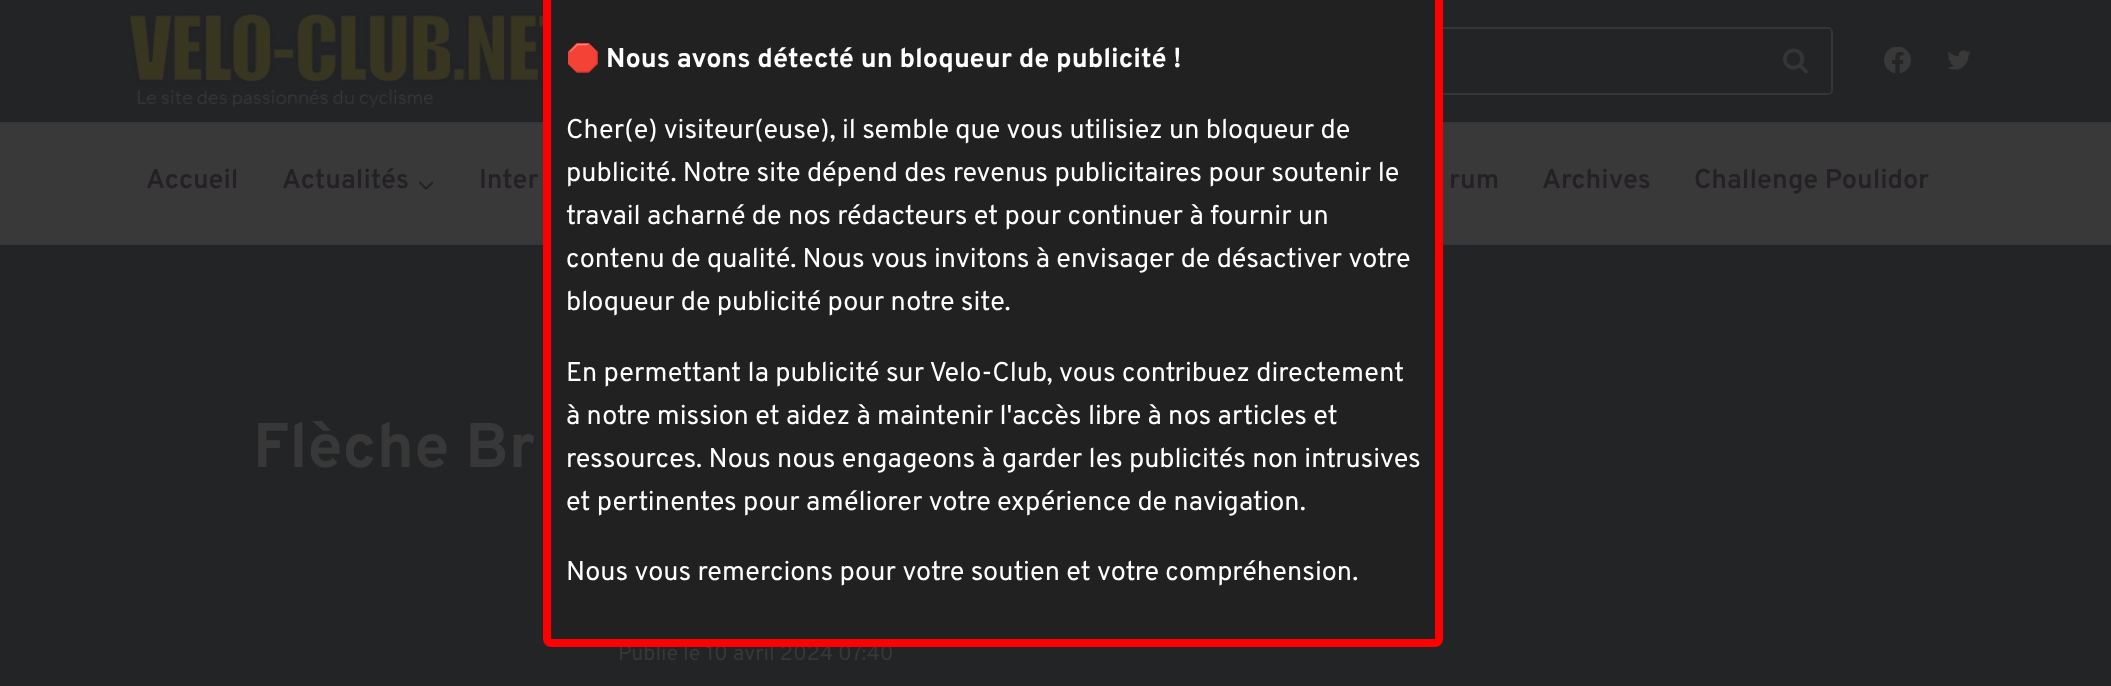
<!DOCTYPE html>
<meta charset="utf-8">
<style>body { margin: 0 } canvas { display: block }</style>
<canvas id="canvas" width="2111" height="686"></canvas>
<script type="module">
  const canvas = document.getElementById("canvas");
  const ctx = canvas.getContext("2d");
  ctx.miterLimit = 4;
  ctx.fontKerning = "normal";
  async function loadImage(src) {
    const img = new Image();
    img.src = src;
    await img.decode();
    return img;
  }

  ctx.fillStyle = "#232425";
  ctx.fillRect(0, 0, 2111, 686);
  ctx.fillStyle = "#393939";
  ctx.fillRect(0, 124, 2111, 119);
  ctx.beginPath();
  ctx.roundRect(1248, 28, 584, 66, 4);
  ctx.strokeStyle = "#343536";
  ctx.lineWidth = 2;
  ctx.stroke();
  ctx.fillStyle = "#373737";
  ctx.fillRect(0, 122, 2111, 2);
  ctx.fillRect(0, 243, 2111, 2);
  ctx.font = "21.5px Overpass";
  ctx.fillStyle = "#383839";
  ctx.fillText("Publié le", 618, 660);
  ctx.fillText("10 avril 2024 07:40", 706, 660);
  ctx.fillStyle = "#212121";
  ctx.beginPath();
  ctx.roundRect(547, -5, 892, 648, 4);
  ctx.fill();
  ctx.strokeStyle = "#ff0000";
  ctx.lineWidth = 8;
  ctx.stroke();
  ctx.font = "27px Noto Color Emoji";
  ctx.fillStyle = "#ffffff";
  ctx.fillText("🛑", 566, 67);
  ctx.font = "bold 27px Overpass";
  ctx.fillText("Nous avons détecté un bloqueur de publicité !", 606, 67);
  ctx.font = "27px Overpass";
  ctx.fillText("Cher(e) visiteur(euse), il semble que vous utilisiez un bloqueur de", 566, 138);
  ctx.fillText("publicité. Notre site dépend des revenus publicitaires pour soutenir le", 566, 181);
  ctx.fillText("travail acharné de nos rédacteurs et pour continuer à fournir un", 566, 224);
  ctx.fillText("contenu de qualité. Nous vous invitons à envisager de désactiver votre", 566, 267);
  ctx.fillText("bloqueur de publicité pour notre site.", 566, 310);
  ctx.fillText("En permettant la publicité sur Velo-Club, vous contribuez directement", 566, 381);
  ctx.fillText("à notre mission et aidez à maintenir l'accès libre à nos articles et", 566, 424);
  ctx.fillText("ressources. Nous nous engageons à garder les publicités non intrusives", 566, 467);
  ctx.fillText("et pertinentes pour améliorer votre expérience de navigation.", 566, 510);
  ctx.fillText("Nous vous remercions pour votre soutien et votre compréhension.", 566, 580);
  ctx.drawImage(await loadImage("img1.png"), 126, 11, 417, 97);
  ctx.drawImage(await loadImage("img2.png"), 1783, 48, 25, 26);
  ctx.drawImage(await loadImage("img3.png"), 1884, 47, 27, 27);
  ctx.drawImage(await loadImage("img4.png"), 1947, 50, 24, 20);
  ctx.font = "600 27px Overpass";
  ctx.fillStyle = "#242026";
  ctx.fillText("Accueil", 146, 188);
  ctx.fillText("Actualités", 282, 188);
  ctx.drawImage(await loadImage("img5.png"), 419, 181, 15, 9);
  ctx.fillText("Inter", 479, 188);
  ctx.fillText("rum", 1449, 188);
  ctx.fillText("Archives", 1542, 188);
  ctx.fillText("Challenge Poulidor", 1694, 188);
  ctx.font = "bold 63px Overpass";
  ctx.fillStyle = "#383839";
  ctx.fillText("Flèche Br", 253, 467);
</script>
